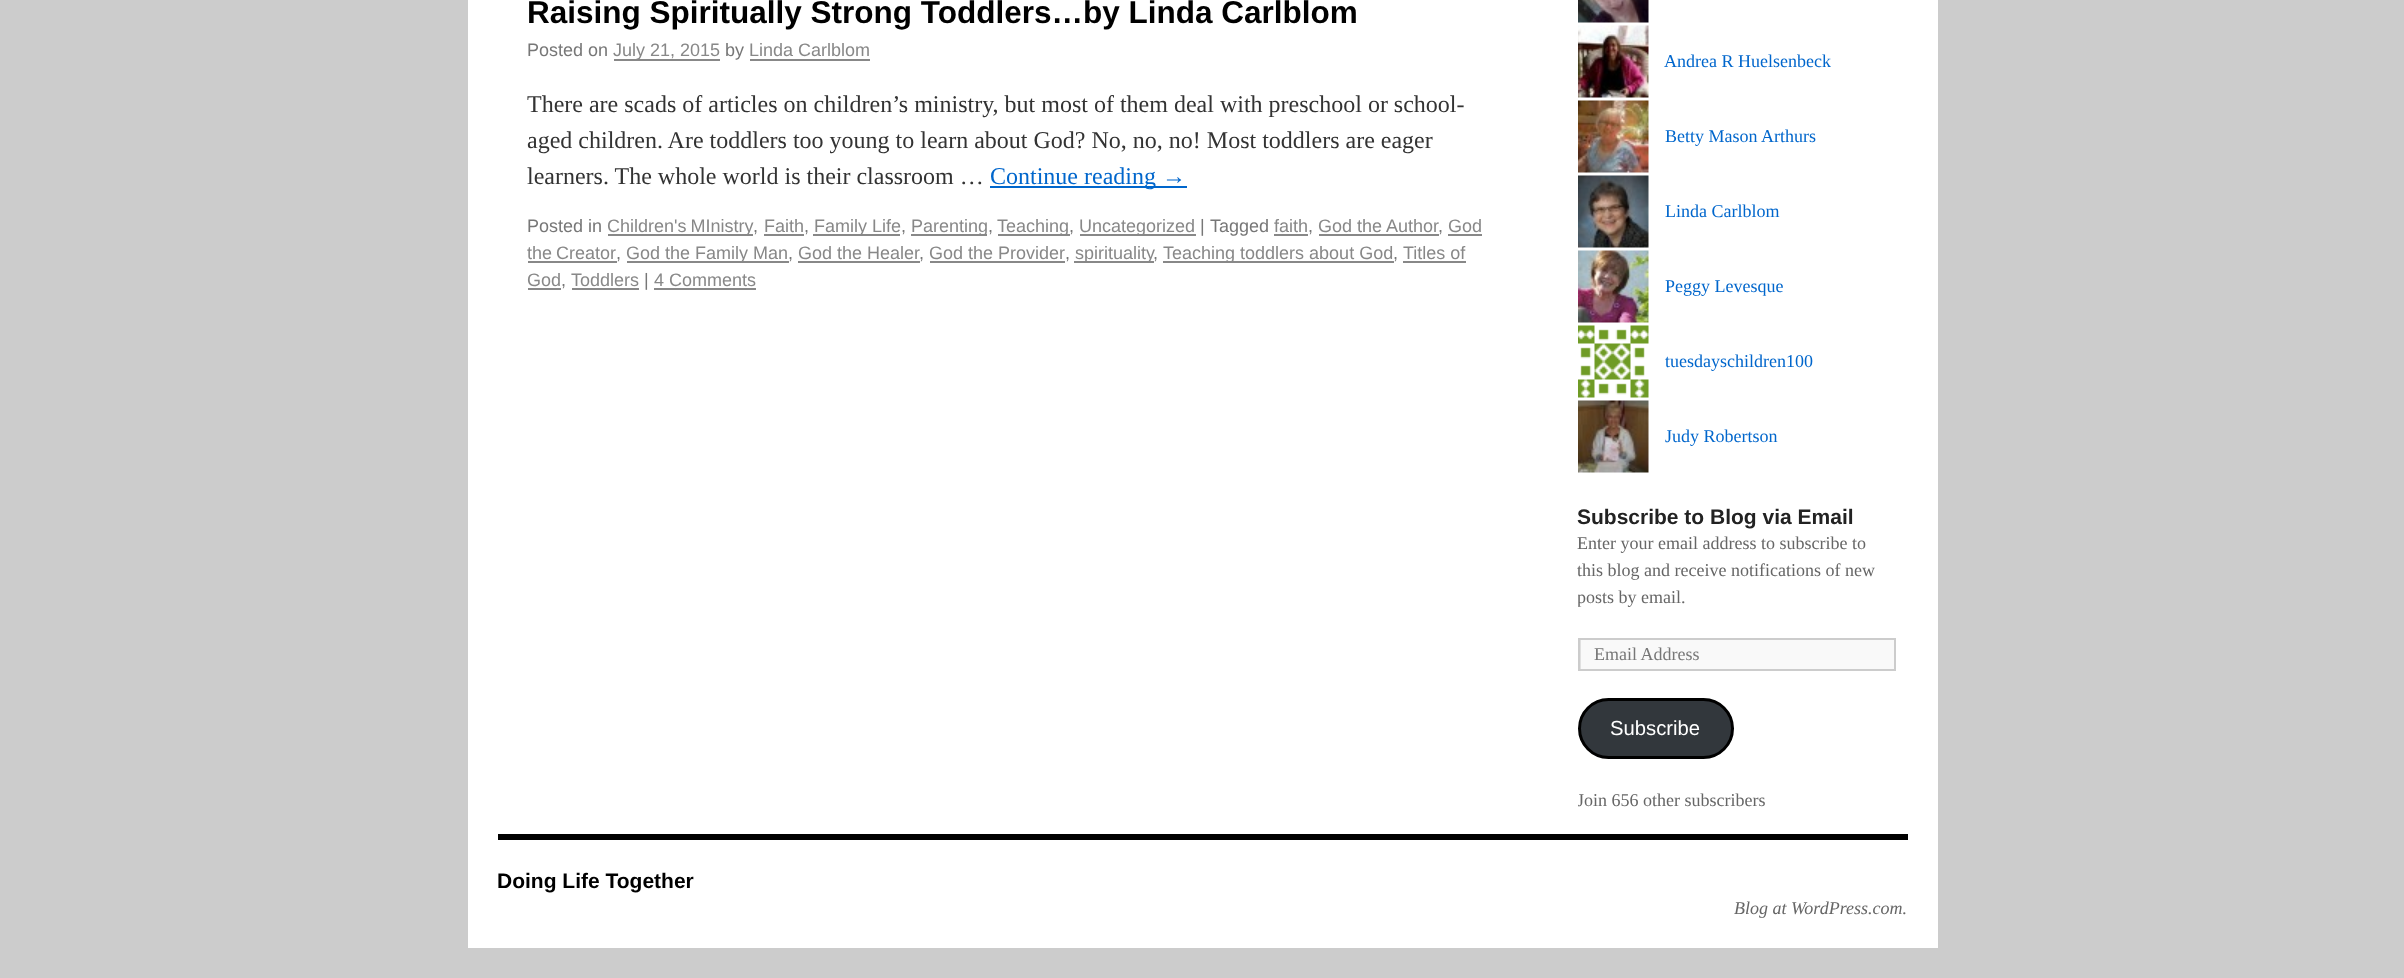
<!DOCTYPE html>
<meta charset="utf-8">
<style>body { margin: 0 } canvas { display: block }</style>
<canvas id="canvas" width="2404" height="978"></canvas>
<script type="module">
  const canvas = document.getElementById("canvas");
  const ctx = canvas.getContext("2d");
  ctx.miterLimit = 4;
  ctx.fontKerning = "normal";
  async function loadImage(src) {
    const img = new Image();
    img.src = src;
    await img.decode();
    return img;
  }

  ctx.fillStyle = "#cccccc";
  ctx.fillRect(0, 0, 2404, 978);
  ctx.fillStyle = "#ffffff";
  ctx.fillRect(468, 0, 1470, 948);
  ctx.font = "bold 31.5px Liberation Sans";
  ctx.fillStyle = "#000000";
  ctx.fillText("Raising Spiritually Strong Toddlers…by Linda Carlblom", 527, 23);
  ctx.font = "18px Liberation Sans";
  ctx.fillStyle = "#777777";
  ctx.fillText("Posted on", 527, 56);
  ctx.fillStyle = "#888888";
  ctx.fillRect(614, 59, 106, 2);
  ctx.fillText("July 21, 2015", 613, 56);
  ctx.fillStyle = "#777777";
  ctx.fillText("by", 725, 56);
  ctx.fillStyle = "#888888";
  ctx.fillText("Linda Carlblom", 749, 56);
  ctx.fillRect(750, 59, 120, 2);
  ctx.font = "24px Liberation Serif";
  ctx.fillStyle = "#333333";
  ctx.fillText("There are scads of articles on children’s ministry, but most of them deal with preschool or school-", 527, 112);
  ctx.fillText("aged children. Are toddlers too young to learn about God? No, no, no! Most toddlers are eager", 527, 148);
  ctx.fillText("learners. The whole world is their classroom …", 527, 184);
  ctx.fillStyle = "#0066cc";
  ctx.fillRect(990, 186, 197, 2);
  ctx.fillText("Continue reading →", 990, 184);
  ctx.font = "18px Liberation Sans";
  ctx.fillStyle = "#777777";
  ctx.fillText("Posted in", 527, 232);
  ctx.fillStyle = "#888888";
  ctx.fillRect(608, 234, 145, 2);
  ctx.wordSpacing = "-1px";
  ctx.fillText("Children's MInistry", 607, 232);
  ctx.wordSpacing = "0px";
  ctx.fillStyle = "#777777";
  ctx.fillText(",", 753, 232);
  ctx.fillStyle = "#888888";
  ctx.fillText("Faith", 764, 232);
  ctx.fillStyle = "#777777";
  ctx.fillText(",", 804, 232);
  ctx.fillStyle = "#888888";
  ctx.fillRect(764, 234, 40, 2);
  ctx.fillRect(813, 234, 87, 2);
  ctx.fillText("Family Life", 814, 232);
  ctx.fillStyle = "#777777";
  ctx.fillText(",", 901, 232);
  ctx.fillStyle = "#888888";
  ctx.fillRect(911, 234, 76, 2);
  ctx.fillText("Parenting", 911, 232);
  ctx.fillStyle = "#777777";
  ctx.fillText(",", 988, 232);
  ctx.fillStyle = "#888888";
  ctx.fillRect(998, 234, 72, 2);
  ctx.fillText("Teaching", 997, 232);
  ctx.fillStyle = "#777777";
  ctx.fillText(",", 1069, 232);
  ctx.fillStyle = "#888888";
  ctx.fillRect(1080, 234, 116, 2);
  ctx.fillText("Uncategorized", 1079, 232);
  ctx.fillStyle = "#777777";
  ctx.fillText("|", 1200, 232);
  ctx.fillText("Tagged", 1210, 232);
  ctx.fillStyle = "#888888";
  ctx.fillText("faith", 1274, 232);
  ctx.fillStyle = "#777777";
  ctx.fillText(",", 1308, 232);
  ctx.fillStyle = "#888888";
  ctx.fillRect(1274, 234, 34, 2);
  ctx.fillText("God the Author", 1318, 232);
  ctx.fillStyle = "#777777";
  ctx.fillText(",", 1438, 232);
  ctx.fillStyle = "#888888";
  ctx.fillRect(1319, 234, 120, 2);
  ctx.fillRect(1448, 234, 34, 2);
  ctx.fillText("God", 1448, 232);
  ctx.wordSpacing = "-1px";
  ctx.fillText("the Creator", 527, 259);
  ctx.wordSpacing = "0px";
  ctx.fillStyle = "#777777";
  ctx.fillText(",", 616, 259);
  ctx.fillStyle = "#888888";
  ctx.fillRect(528, 261, 89, 2);
  ctx.fillRect(627, 261, 162, 2);
  ctx.fillText("God the Family Man", 626, 259);
  ctx.fillStyle = "#777777";
  ctx.fillText(",", 788, 259);
  ctx.fillStyle = "#888888";
  ctx.fillText("God the Healer", 798, 259);
  ctx.fillStyle = "#777777";
  ctx.fillText(",", 919, 259);
  ctx.fillStyle = "#888888";
  ctx.fillRect(798, 261, 122, 2);
  ctx.fillText("God the Provider", 929, 259);
  ctx.fillStyle = "#777777";
  ctx.fillText(",", 1065, 259);
  ctx.fillStyle = "#888888";
  ctx.fillRect(930, 261, 135, 2);
  ctx.fillRect(1074, 261, 80, 2);
  ctx.fillText("spirituality", 1075, 259);
  ctx.fillStyle = "#777777";
  ctx.fillText(",", 1153, 259);
  ctx.fillStyle = "#888888";
  ctx.fillRect(1163, 261, 231, 2);
  ctx.fillText("Teaching toddlers about God", 1163, 259);
  ctx.fillStyle = "#777777";
  ctx.fillText(",", 1393, 259);
  ctx.fillStyle = "#888888";
  ctx.fillRect(1403, 261, 63, 2);
  ctx.fillText("Titles of", 1403, 259);
  ctx.fillText("God", 527, 286);
  ctx.fillStyle = "#777777";
  ctx.fillText(",", 561, 286);
  ctx.fillStyle = "#888888";
  ctx.fillRect(528, 288, 33, 2);
  ctx.fillRect(572, 288, 67, 2);
  ctx.fillText("Toddlers", 571, 286);
  ctx.fillStyle = "#777777";
  ctx.fillText("|", 644, 286);
  ctx.fillStyle = "#888888";
  ctx.fillText("4 Comments", 654, 286);
  ctx.fillRect(654, 288, 102, 2);
  ctx.drawImage(await loadImage("img1.png"), 1578, 0, 71, 23);
  ctx.drawImage(await loadImage("img2.png"), 1578, 25, 71, 73);
  ctx.font = "18px Liberation Serif";
  ctx.fillStyle = "#0066cc";
  ctx.fillText("Andrea R Huelsenbeck", 1664, 67);
  ctx.drawImage(await loadImage("img3.png"), 1578, 100, 71, 73);
  ctx.fillText("Betty Mason Arthurs", 1665, 142);
  ctx.drawImage(await loadImage("img4.png"), 1578, 175, 71, 73);
  ctx.fillText("Linda Carlblom", 1665, 217);
  ctx.drawImage(await loadImage("img5.png"), 1578, 250, 71, 73);
  ctx.fillText("Peggy Levesque", 1665, 292);
  ctx.drawImage(await loadImage("img6.png"), 1578, 325, 71, 73);
  ctx.fillText("tuesdayschildren100", 1665, 367);
  ctx.drawImage(await loadImage("img7.png"), 1578, 400, 71, 73);
  ctx.fillText("Judy Robertson", 1665, 442);
  ctx.font = "bold 21px Liberation Sans";
  ctx.fillStyle = "#222222";
  ctx.fillText("Subscribe to Blog via Email", 1577, 524);
  ctx.font = "18px Liberation Serif";
  ctx.fillStyle = "#666666";
  ctx.fillText("Enter your email address to subscribe to", 1577, 549);
  ctx.fillText("this blog and receive notifications of new", 1577, 576);
  ctx.save();
  ctx.beginPath();
  ctx.rect(1578, 503, 330, 337);
  ctx.clip();
  ctx.fillText("posts by email.", 1577, 603);
  ctx.restore();
  ctx.fillStyle = "#f9f9f9";
  ctx.fillRect(1581, 640, 313, 29);
  ctx.save();
  ctx.beginPath();
  ctx.rect(1580, 639, 315, 30);
  ctx.clip();
  ctx.fillStyle = "#e0e0e0";
  ctx.beginPath();
  ctx.moveTo(1431, 490);
  ctx.lineTo(2043, 490);
  ctx.lineTo(2043, 818);
  ctx.lineTo(1431, 818);
  ctx.closePath();
  ctx.moveTo(1581, 640);
  ctx.lineTo(1896, 640);
  ctx.lineTo(1896, 670);
  ctx.lineTo(1581, 670);
  ctx.closePath();
  ctx.fill("evenodd");
  ctx.restore();
  ctx.strokeStyle = "#cccccc";
  ctx.lineWidth = 2;
  ctx.strokeRect(1579, 639, 316, 31);
  ctx.fillStyle = "#777777";
  ctx.fillText("Email Address", 1594, 660);
  ctx.fillStyle = "#32373c";
  ctx.beginPath();
  ctx.roundRect(1579.5, 699.5, 153, 58, 29);
  ctx.fill();
  ctx.strokeStyle = "#000000";
  ctx.lineWidth = 3;
  ctx.stroke();
  ctx.font = "20.25px Liberation Sans";
  ctx.fillStyle = "#ffffff";
  ctx.fillText("Subscribe", 1610, 735);
  ctx.save();
  ctx.beginPath();
  ctx.rect(1578, 503, 330, 337);
  ctx.clip();
  ctx.font = "18px Liberation Serif";
  ctx.fillStyle = "#666666";
  ctx.fillText("Join 656 other subscribers", 1577, 806);
  ctx.restore();
  ctx.fillStyle = "#000000";
  ctx.fillRect(498, 834, 1410, 6);
  ctx.font = "bold 21px Liberation Sans";
  ctx.fillText("Doing Life Together", 497, 888);
  ctx.font = "italic 18px Liberation Serif";
  ctx.fillStyle = "#666666";
  ctx.fillText("Blog at WordPress.com.", 1734, 914);
</script>
